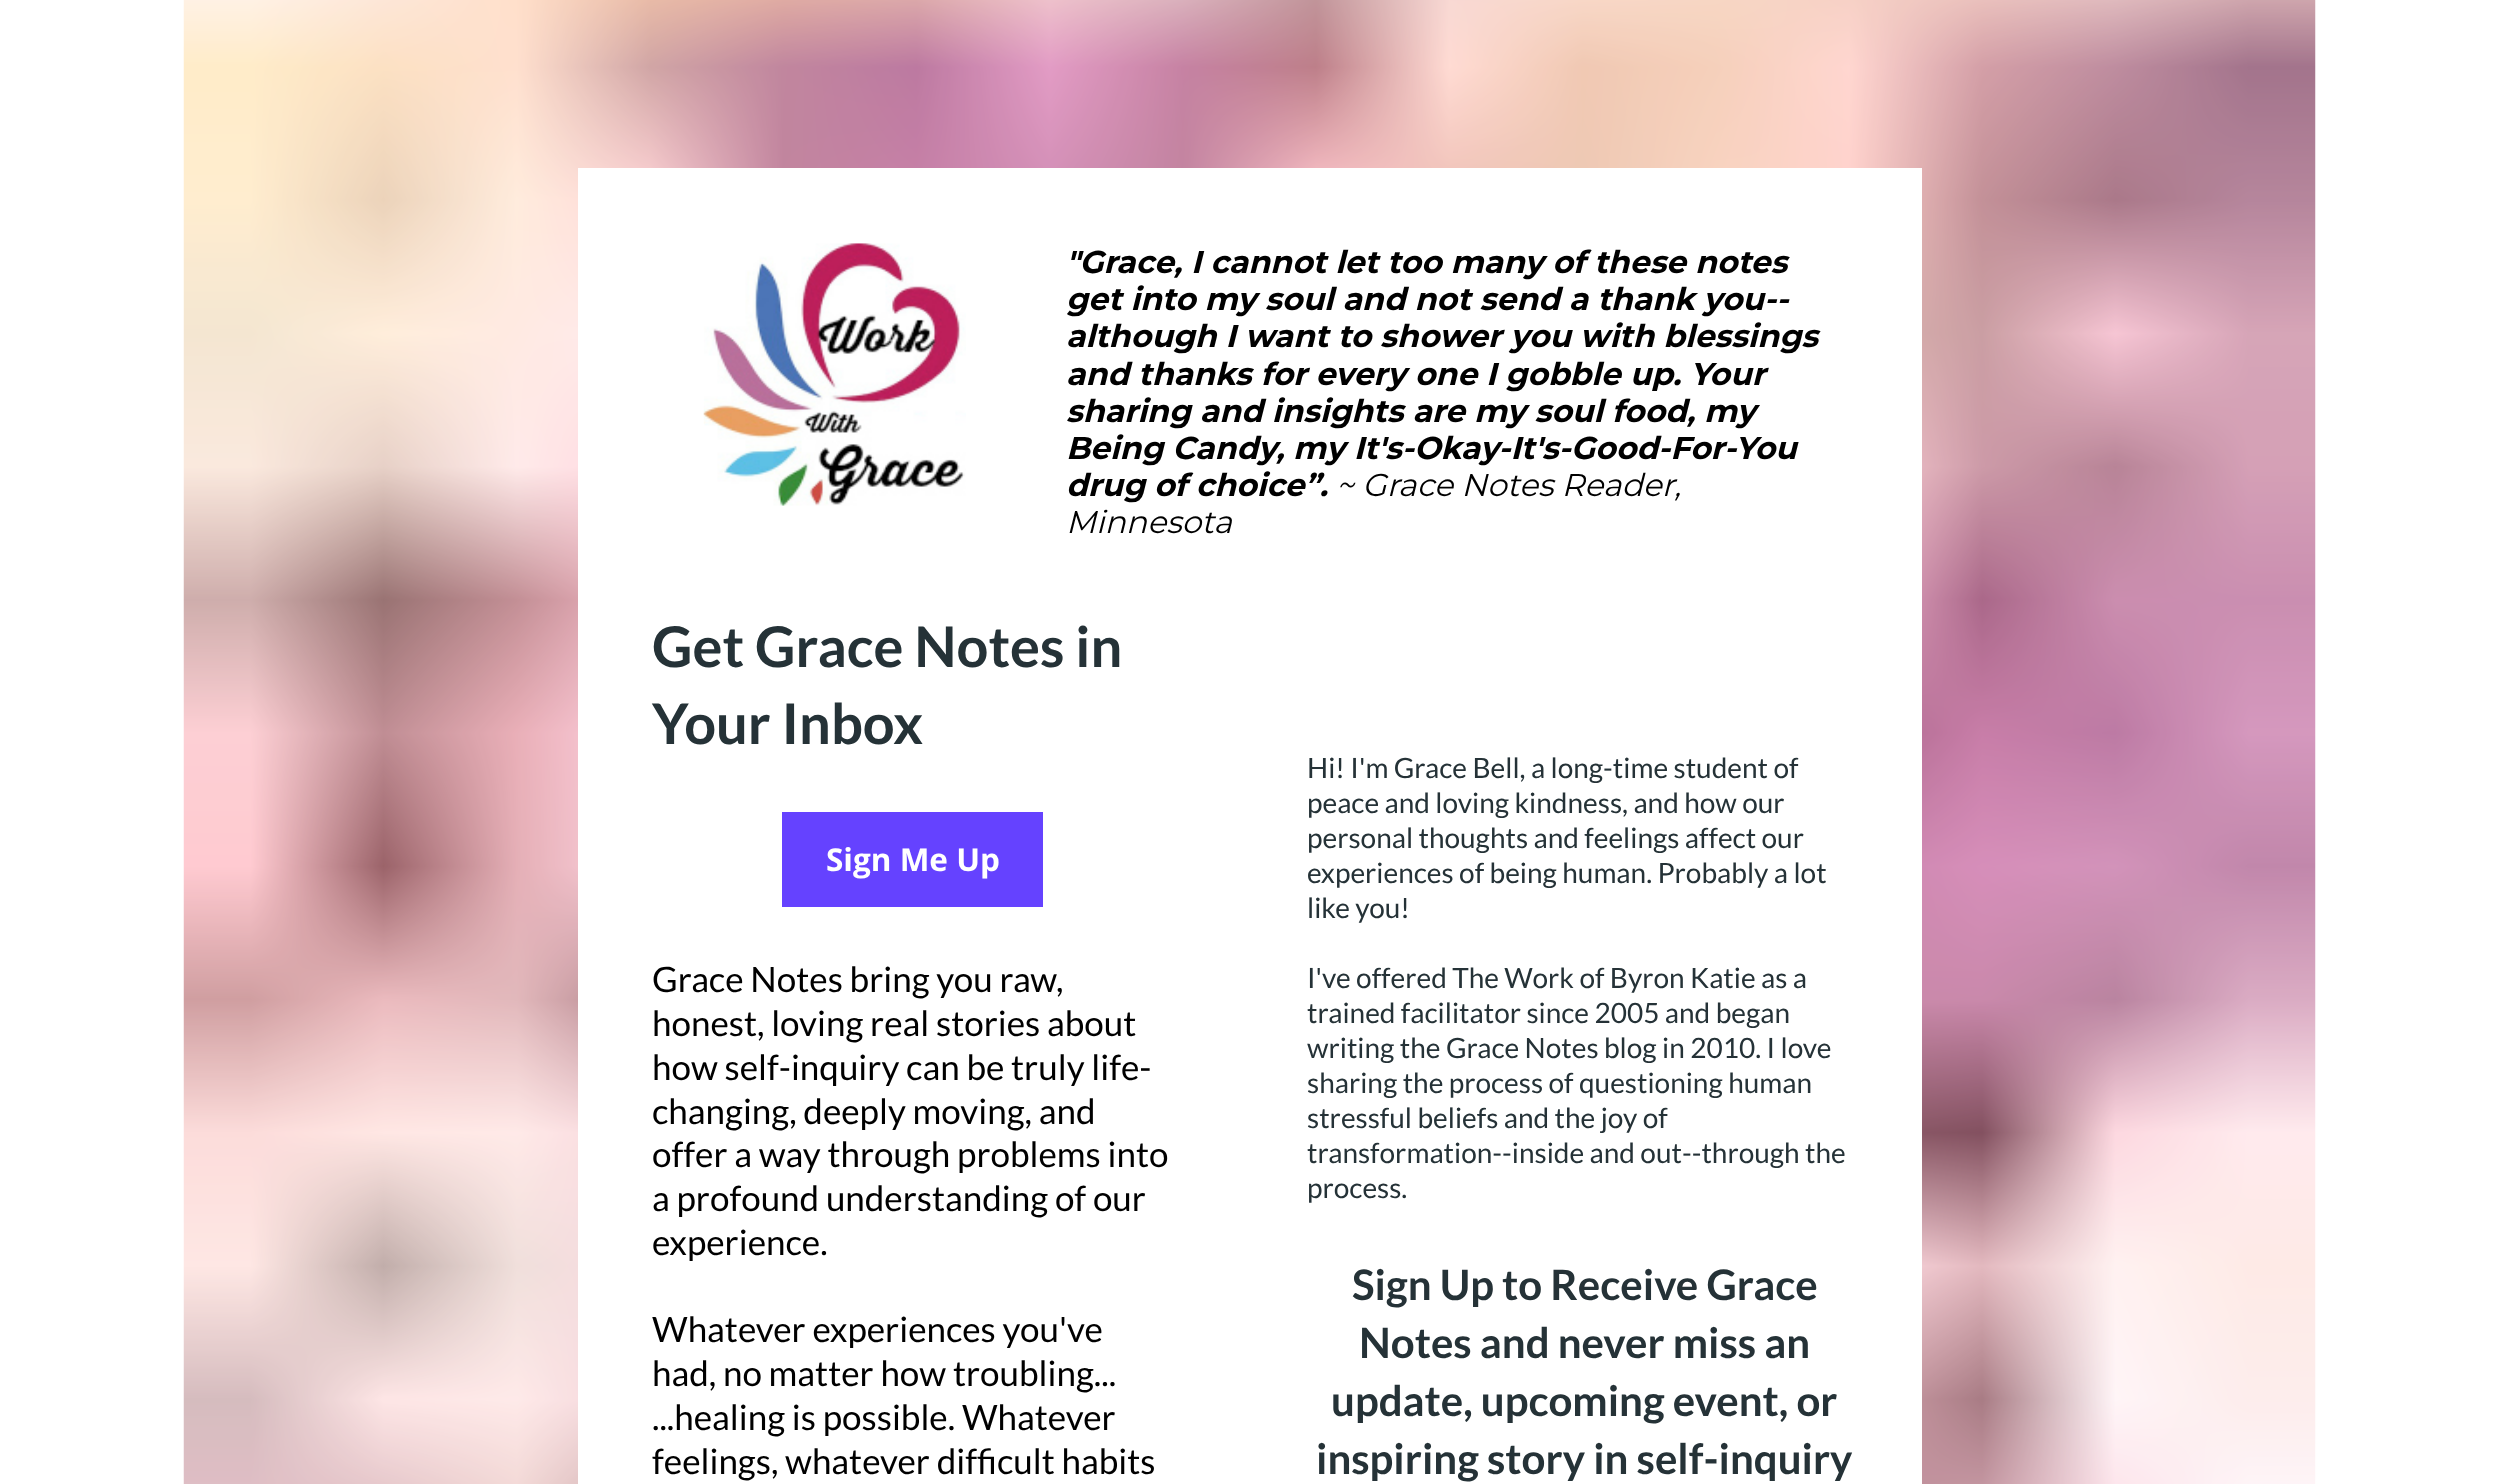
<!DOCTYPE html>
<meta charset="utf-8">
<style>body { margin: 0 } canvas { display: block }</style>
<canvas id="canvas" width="2497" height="1484"></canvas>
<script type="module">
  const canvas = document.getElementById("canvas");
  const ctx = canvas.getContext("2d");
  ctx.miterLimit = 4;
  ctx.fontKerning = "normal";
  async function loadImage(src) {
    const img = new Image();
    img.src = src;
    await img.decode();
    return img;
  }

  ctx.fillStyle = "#ffffff";
  ctx.fillRect(0, 0, 2497, 1484);
  ctx.drawImage(await loadImage("img1.png"), 183, 0, 2133, 1484);
  ctx.fillRect(578, 168, 1344, 397);
  ctx.drawImage(await loadImage("img2.png"), 703, 243, 263, 263);
  ctx.font = "italic bold 31.5px Montserrat";
  ctx.fillStyle = "#000000";
  ctx.fillText("\"Grace, I cannot let too many of these notes", 1066, 273);
  ctx.fillText("get into my soul and not send a thank you--", 1066, 310);
  ctx.fillText("although I want to shower you with blessings", 1066, 347);
  ctx.fillText("and thanks for every one I gobble up. Your", 1066, 385);
  ctx.fillText("sharing and insights are my soul food, my", 1066, 422);
  ctx.fillText("Being Candy, my It's-Okay-It's-Good-For-You", 1066, 459);
  ctx.fillText("drug of choice”.", 1066, 496);
  ctx.font = "italic 31.5px Montserrat";
  ctx.fillText("~ Grace Notes Reader,", 1336, 496);
  ctx.fillText("Minnesota", 1066, 533);
  ctx.fillStyle = "#ffffff";
  ctx.fillRect(578, 565, 1344, 919);
  ctx.font = "bold 56px Lato";
  ctx.fillStyle = "#253237";
  ctx.fillText("Get Grace Notes in", 652, 667);
  ctx.fillText("Your Inbox", 652, 744);
  ctx.fillStyle = "#6542ff";
  ctx.fillRect(782, 812, 261, 95);
  ctx.font = "bold 31.5px Open Sans";
  ctx.fillStyle = "#ffffff";
  ctx.fillText("Sign Me Up", 826, 871);
  ctx.font = "35px Lato";
  ctx.fillStyle = "#000000";
  ctx.fillText("Grace Notes bring you raw,", 652, 992);
  ctx.fillText("honest, loving real stories about", 652, 1036);
  ctx.fillText("how self-inquiry can be truly life-", 652, 1080);
  ctx.fillText("changing, deeply moving, and", 652, 1124);
  ctx.fillText("offer a way through problems into", 652, 1167);
  ctx.fillText("a profound understanding of our", 652, 1211);
  ctx.fillText("experience.", 652, 1255);
  ctx.fillText("Whatever experiences you've", 652, 1342);
  ctx.fillText("had, no matter how troubling...", 652, 1386);
  ctx.fillText("...healing is possible. Whatever", 652, 1430);
  ctx.fillText("feelings, whatever difficult habits", 652, 1474);
  ctx.font = "28px Lato";
  ctx.fillStyle = "#253237";
  ctx.fillText("Hi! I'm Grace Bell, a long-time student of", 1307, 778);
  ctx.fillText("peace and loving kindness, and how our", 1307, 813);
  ctx.fillText("personal thoughts and feelings affect our", 1307, 848);
  ctx.fillText("experiences of being human. Probably a lot", 1307, 883);
  ctx.fillText("like you!", 1307, 918);
  ctx.fillText("I've offered The Work of Byron Katie as a", 1307, 988);
  ctx.fillText("trained facilitator since 2005 and began", 1307, 1023);
  ctx.fillText("writing the Grace Notes blog in 2010. I love", 1307, 1058);
  ctx.fillText("sharing the process of questioning human", 1307, 1093);
  ctx.fillText("stressful beliefs and the joy of", 1307, 1128);
  ctx.fillText("transformation--inside and out--through the", 1307, 1163);
  ctx.fillText("process.", 1307, 1198);
  ctx.font = "bold 42px Lato";
  ctx.fillText("Sign Up to Receive Grace", 1352, 1300);
  ctx.fillText("Notes and never miss an", 1359, 1358);
  ctx.fillText("update, upcoming event, or", 1331, 1416);
  ctx.fillText("inspiring story in self-inquiry", 1316, 1474);
</script>
